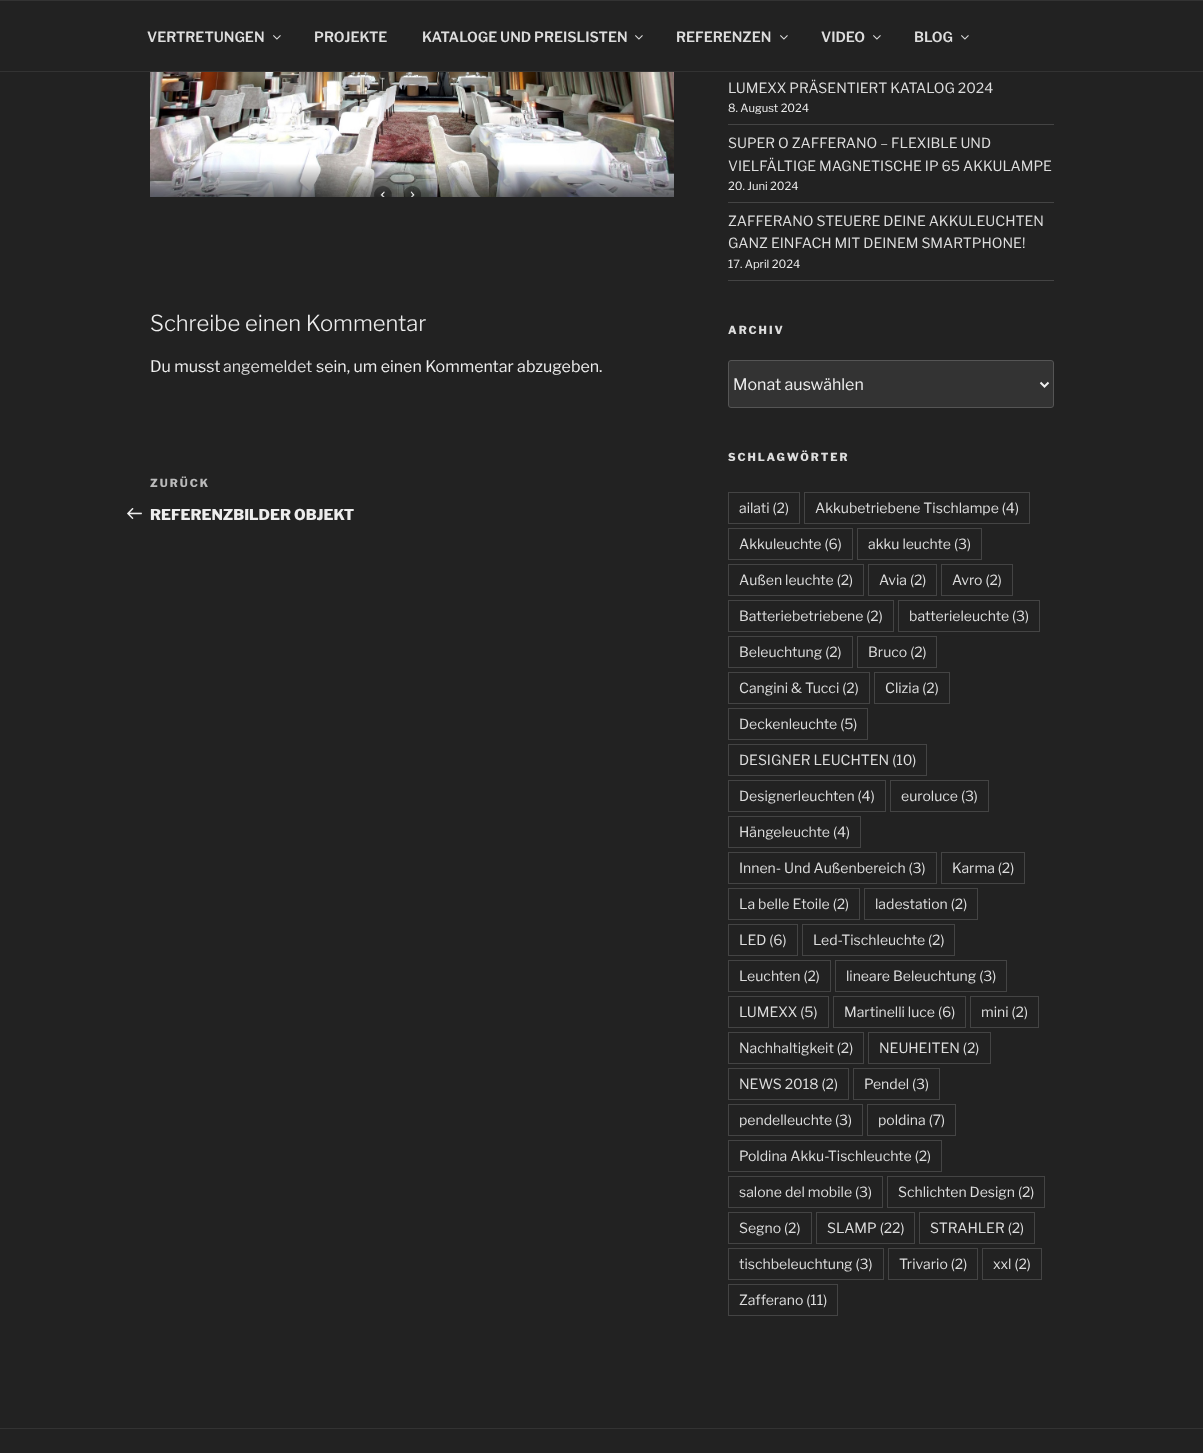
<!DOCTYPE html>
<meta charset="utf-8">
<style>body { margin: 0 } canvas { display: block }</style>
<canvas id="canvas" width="1203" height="1453"></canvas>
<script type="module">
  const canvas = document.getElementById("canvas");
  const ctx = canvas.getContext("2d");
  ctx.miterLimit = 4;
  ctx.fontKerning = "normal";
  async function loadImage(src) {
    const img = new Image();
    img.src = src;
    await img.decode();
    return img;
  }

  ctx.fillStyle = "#222222";
  ctx.fillRect(0, 0, 1203, 1453);
  ctx.fillStyle = "#333333";
  ctx.fillRect(0, 0, 1203, 1);
  ctx.fillRect(0, 71, 1203, 1);
  ctx.font = "100 14px 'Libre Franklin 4'";
  ctx.fillStyle = "#dddddd";
  ctx.fillText("VERTRETUNGEN", 147, 42);
  ctx.drawImage(await loadImage("img1.png"), 273, 35, 8, 5);
  ctx.fillText("PROJEKTE", 314, 42);
  ctx.fillText("KATALOGE UND PREISLISTEN", 422, 42);
  ctx.drawImage(await loadImage("img1.png"), 635, 35, 8, 5);
  ctx.fillText("REFERENZEN", 676, 42);
  ctx.drawImage(await loadImage("img1.png"), 780, 35, 8, 5);
  ctx.fillText("VIDEO", 821, 42);
  ctx.drawImage(await loadImage("img1.png"), 873, 35, 8, 5);
  ctx.fillText("BLOG", 914, 42);
  ctx.drawImage(await loadImage("img1.png"), 961, 35, 8, 5);
  ctx.drawImage(await loadImage("img2.png"), 150, 72, 524, 125);
  ctx.font = "100 22px 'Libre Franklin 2'";
  ctx.fillStyle = "#eeeeee";
  ctx.fillText("Schreibe einen Kommentar", 150, 331);
  ctx.font = "100 16px 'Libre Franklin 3'";
  ctx.fillText("Du musst", 150, 372);
  ctx.fillStyle = "#dddddd";
  ctx.fillText("angemeldet", 223, 372);
  ctx.fillStyle = "#eeeeee";
  ctx.fillText("sein, um einen Kommentar abzugeben.", 316, 372);
  ctx.letterSpacing = "2px";
  ctx.font = "100 11px Libre Franklin";
  ctx.fillStyle = "#bbbbbb";
  ctx.fillText("ZURÜCK", 150, 487);
  ctx.drawImage(await loadImage("img3.png"), 127, 508, 15, 11);
  ctx.letterSpacing = "0px";
  ctx.font = "100 15px Libre Franklin";
  ctx.fillStyle = "#eeeeee";
  ctx.fillText("REFERENZBILDER OBJEKT", 150, 520);
  ctx.fillStyle = "#444444";
  ctx.fillRect(728, 124, 326, 1);
  ctx.font = "100 14px 'Libre Franklin 3'";
  ctx.fillStyle = "#dddddd";
  ctx.fillText("LUMEXX PRÄSENTIERT KATALOG 2024", 728, 93);
  ctx.font = "100 11.25px 'Libre Franklin 3'";
  ctx.fillStyle = "#eeeeee";
  ctx.fillText("8. August 2024", 728, 112);
  ctx.fillStyle = "#444444";
  ctx.fillRect(728, 202, 326, 1);
  ctx.font = "100 14px 'Libre Franklin 3'";
  ctx.fillStyle = "#dddddd";
  ctx.fillText("SUPER O ZAFFERANO – FLEXIBLE UND", 728, 148);
  ctx.fillText("VIELFÄLTIGE MAGNETISCHE IP 65 AKKULAMPE", 728, 171);
  ctx.font = "100 11.25px 'Libre Franklin 3'";
  ctx.fillStyle = "#eeeeee";
  ctx.fillText("20. Juni 2024", 728, 190);
  ctx.fillStyle = "#444444";
  ctx.fillRect(728, 280, 326, 1);
  ctx.font = "100 14px 'Libre Franklin 3'";
  ctx.fillStyle = "#dddddd";
  ctx.fillText("ZAFFERANO STEUERE DEINE AKKULEUCHTEN", 728, 226);
  ctx.fillText("GANZ EINFACH MIT DEINEM SMARTPHONE!", 728, 248);
  ctx.font = "100 11.25px 'Libre Franklin 3'";
  ctx.fillStyle = "#eeeeee";
  ctx.fillText("17. April 2024", 728, 268);
  ctx.letterSpacing = "2px";
  ctx.font = "100 11px Libre Franklin";
  ctx.fillStyle = "#dddddd";
  ctx.fillText("ARCHIV", 728, 334);
  ctx.fillStyle = "#333333";
  ctx.beginPath();
  ctx.roundRect(728.5, 360.5, 325, 47, 2.5);
  ctx.fill();
  ctx.strokeStyle = "#555555";
  ctx.stroke();
  ctx.beginPath();
  ctx.moveTo(1040.5, 382.5);
  ctx.lineTo(1044.5, 386.5);
  ctx.lineTo(1048.5, 382.5);
  ctx.strokeStyle = "#eeeeee";
  ctx.lineWidth = 2;
  ctx.stroke();
  ctx.letterSpacing = "0px";
  ctx.font = "100 16px 'Libre Franklin 3'";
  ctx.fillStyle = "#eeeeee";
  ctx.fillText("Monat auswählen", 733, 390);
  ctx.letterSpacing = "2px";
  ctx.font = "100 11px Libre Franklin";
  ctx.fillStyle = "#dddddd";
  ctx.fillText("SCHLAGWÖRTER", 728, 461);
  ctx.strokeStyle = "#444444";
  ctx.lineWidth = 1;
  ctx.strokeRect(728.5, 492.5, 71, 31);
  ctx.letterSpacing = "0px";
  ctx.font = "100 14px 'Libre Franklin 3'";
  ctx.fillText("ailati (2)", 739, 513);
  ctx.strokeRect(804.5, 492.5, 225, 31);
  ctx.fillText("Akkubetriebene Tischlampe (4)", 815, 513);
  ctx.strokeRect(728.5, 528.5, 124, 31);
  ctx.fillText("Akkuleuchte (6)", 739, 549);
  ctx.strokeRect(857.5, 528.5, 124, 31);
  ctx.fillText("akku leuchte (3)", 868, 549);
  ctx.strokeRect(728.5, 564.5, 135, 31);
  ctx.fillText("Außen leuchte (2)", 739, 585);
  ctx.strokeRect(868.5, 564.5, 68, 31);
  ctx.fillText("Avia (2)", 879, 585);
  ctx.strokeRect(941.5, 564.5, 71, 31);
  ctx.fillText("Avro (2)", 952, 585);
  ctx.strokeRect(728.5, 600.5, 165, 31);
  ctx.fillText("Batteriebetriebene (2)", 739, 621);
  ctx.strokeRect(898.5, 600.5, 141, 31);
  ctx.fillText("batterieleuchte (3)", 909, 621);
  ctx.strokeRect(728.5, 636.5, 124, 31);
  ctx.fillText("Beleuchtung (2)", 739, 657);
  ctx.strokeRect(857.5, 636.5, 79, 31);
  ctx.fillText("Bruco (2)", 868, 657);
  ctx.strokeRect(728.5, 672.5, 141, 31);
  ctx.fillText("Cangini & Tucci (2)", 739, 693);
  ctx.strokeRect(874.5, 672.5, 75, 31);
  ctx.fillText("Clizia (2)", 885, 693);
  ctx.strokeRect(728.5, 708.5, 139, 31);
  ctx.fillText("Deckenleuchte (5)", 739, 729);
  ctx.strokeRect(728.5, 744.5, 198, 31);
  ctx.fillText("DESIGNER LEUCHTEN (10)", 739, 765);
  ctx.strokeRect(728.5, 780.5, 157, 31);
  ctx.fillText("Designerleuchten (4)", 739, 801);
  ctx.strokeRect(890.5, 780.5, 98, 31);
  ctx.fillText("euroluce (3)", 901, 801);
  ctx.strokeRect(728.5, 816.5, 132, 31);
  ctx.fillText("Hängeleuchte (4)", 739, 837);
  ctx.strokeRect(728.5, 852.5, 208, 31);
  ctx.fillText("Innen- Und Außenbereich (3)", 739, 873);
  ctx.strokeRect(941.5, 852.5, 83, 31);
  ctx.fillText("Karma (2)", 952, 873);
  ctx.strokeRect(728.5, 888.5, 131, 31);
  ctx.fillText("La belle Etoile (2)", 739, 909);
  ctx.strokeRect(864.5, 888.5, 113, 31);
  ctx.fillText("ladestation (2)", 875, 909);
  ctx.strokeRect(728.5, 924.5, 69, 31);
  ctx.fillText("LED (6)", 739, 945);
  ctx.strokeRect(802.5, 924.5, 152, 31);
  ctx.fillText("Led-Tischleuchte (2)", 813, 945);
  ctx.strokeRect(728.5, 960.5, 102, 31);
  ctx.fillText("Leuchten (2)", 739, 981);
  ctx.strokeRect(835.5, 960.5, 171, 31);
  ctx.fillText("lineare Beleuchtung (3)", 846, 981);
  ctx.strokeRect(728.5, 996.5, 100, 31);
  ctx.fillText("LUMEXX (5)", 739, 1017);
  ctx.strokeRect(833.5, 996.5, 132, 31);
  ctx.fillText("Martinelli luce (6)", 844, 1017);
  ctx.strokeRect(970.5, 996.5, 68, 31);
  ctx.fillText("mini (2)", 981, 1017);
  ctx.strokeRect(728.5, 1032.5, 135, 31);
  ctx.fillText("Nachhaltigkeit (2)", 739, 1053);
  ctx.strokeRect(868.5, 1032.5, 122, 31);
  ctx.fillText("NEUHEITEN (2)", 879, 1053);
  ctx.strokeRect(728.5, 1068.5, 120, 31);
  ctx.fillText("NEWS 2018 (2)", 739, 1089);
  ctx.strokeRect(853.5, 1068.5, 86, 31);
  ctx.fillText("Pendel (3)", 864, 1089);
  ctx.strokeRect(728.5, 1104.5, 134, 31);
  ctx.fillText("pendelleuchte (3)", 739, 1125);
  ctx.strokeRect(867.5, 1104.5, 88, 31);
  ctx.fillText("poldina (7)", 878, 1125);
  ctx.strokeRect(728.5, 1140.5, 213, 31);
  ctx.fillText("Poldina Akku-Tischleuchte (2)", 739, 1161);
  ctx.strokeRect(728.5, 1176.5, 154, 31);
  ctx.fillText("salone del mobile (3)", 739, 1197);
  ctx.strokeRect(887.5, 1176.5, 157, 31);
  ctx.fillText("Schlichten Design (2)", 898, 1197);
  ctx.strokeRect(728.5, 1212.5, 83, 31);
  ctx.fillText("Segno (2)", 739, 1233);
  ctx.strokeRect(816.5, 1212.5, 98, 31);
  ctx.fillText("SLAMP (22)", 827, 1233);
  ctx.strokeRect(919.5, 1212.5, 115, 31);
  ctx.fillText("STRAHLER (2)", 930, 1233);
  ctx.strokeRect(728.5, 1248.5, 155, 31);
  ctx.fillText("tischbeleuchtung (3)", 739, 1269);
  ctx.strokeRect(888.5, 1248.5, 89, 31);
  ctx.fillText("Trivario (2)", 899, 1269);
  ctx.strokeRect(982.5, 1248.5, 59, 31);
  ctx.fillText("xxl (2)", 993, 1269);
  ctx.strokeRect(728.5, 1284.5, 109, 31);
  ctx.fillText("Zafferano (11)", 739, 1305);
  ctx.fillStyle = "#333333";
  ctx.fillRect(0, 1428, 1203, 1);
</script>
